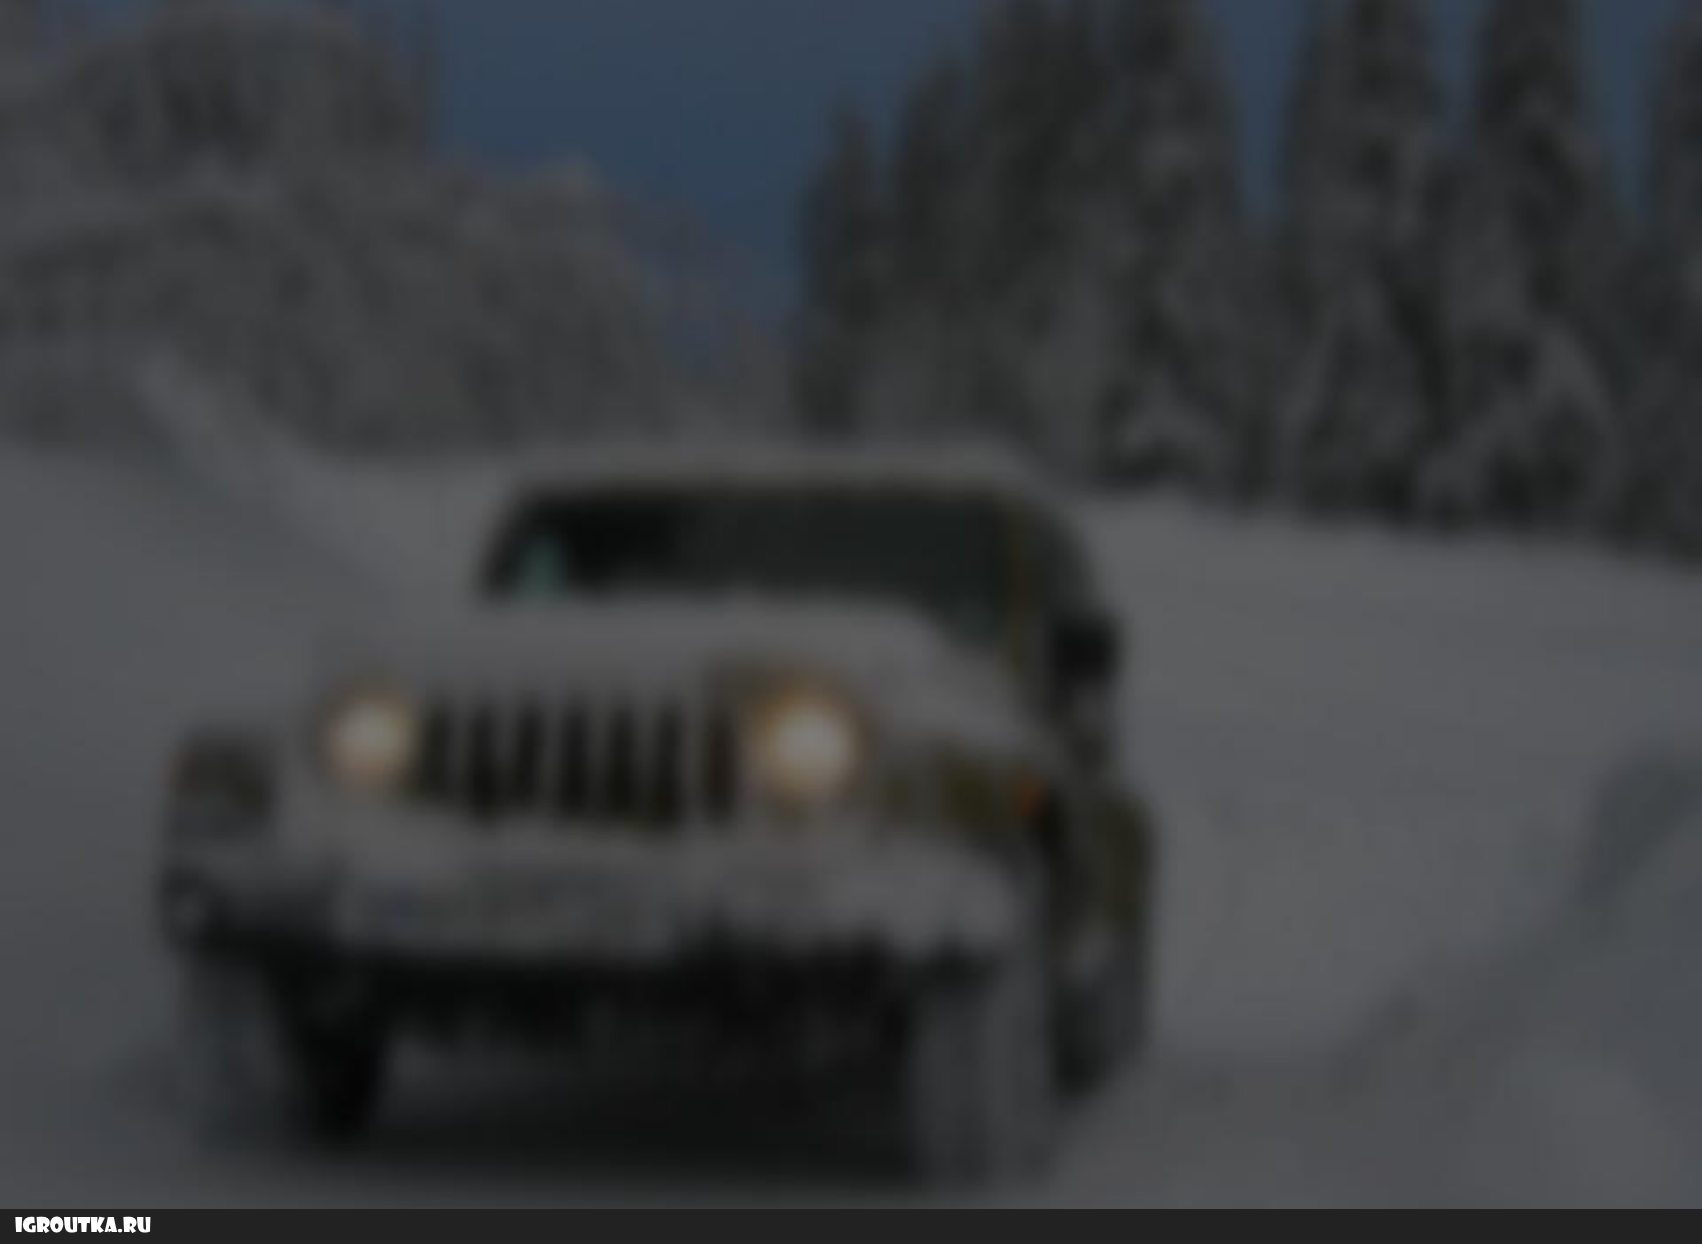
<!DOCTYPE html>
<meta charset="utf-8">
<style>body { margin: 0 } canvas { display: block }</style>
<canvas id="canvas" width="1702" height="1244"></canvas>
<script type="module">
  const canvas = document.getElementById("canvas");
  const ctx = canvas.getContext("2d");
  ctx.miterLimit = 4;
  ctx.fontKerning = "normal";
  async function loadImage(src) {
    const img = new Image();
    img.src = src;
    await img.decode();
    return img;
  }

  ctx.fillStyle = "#222222";
  ctx.fillRect(0, 0, 1702, 1244);
  ctx.drawImage(await loadImage("img1.png"), 0, 0, 1702, 1209);
  ctx.font = "20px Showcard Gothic";
  ctx.fillStyle = "#ffffff";
  ctx.fillText("igroutka.ru", 15, 1232);
</script>
